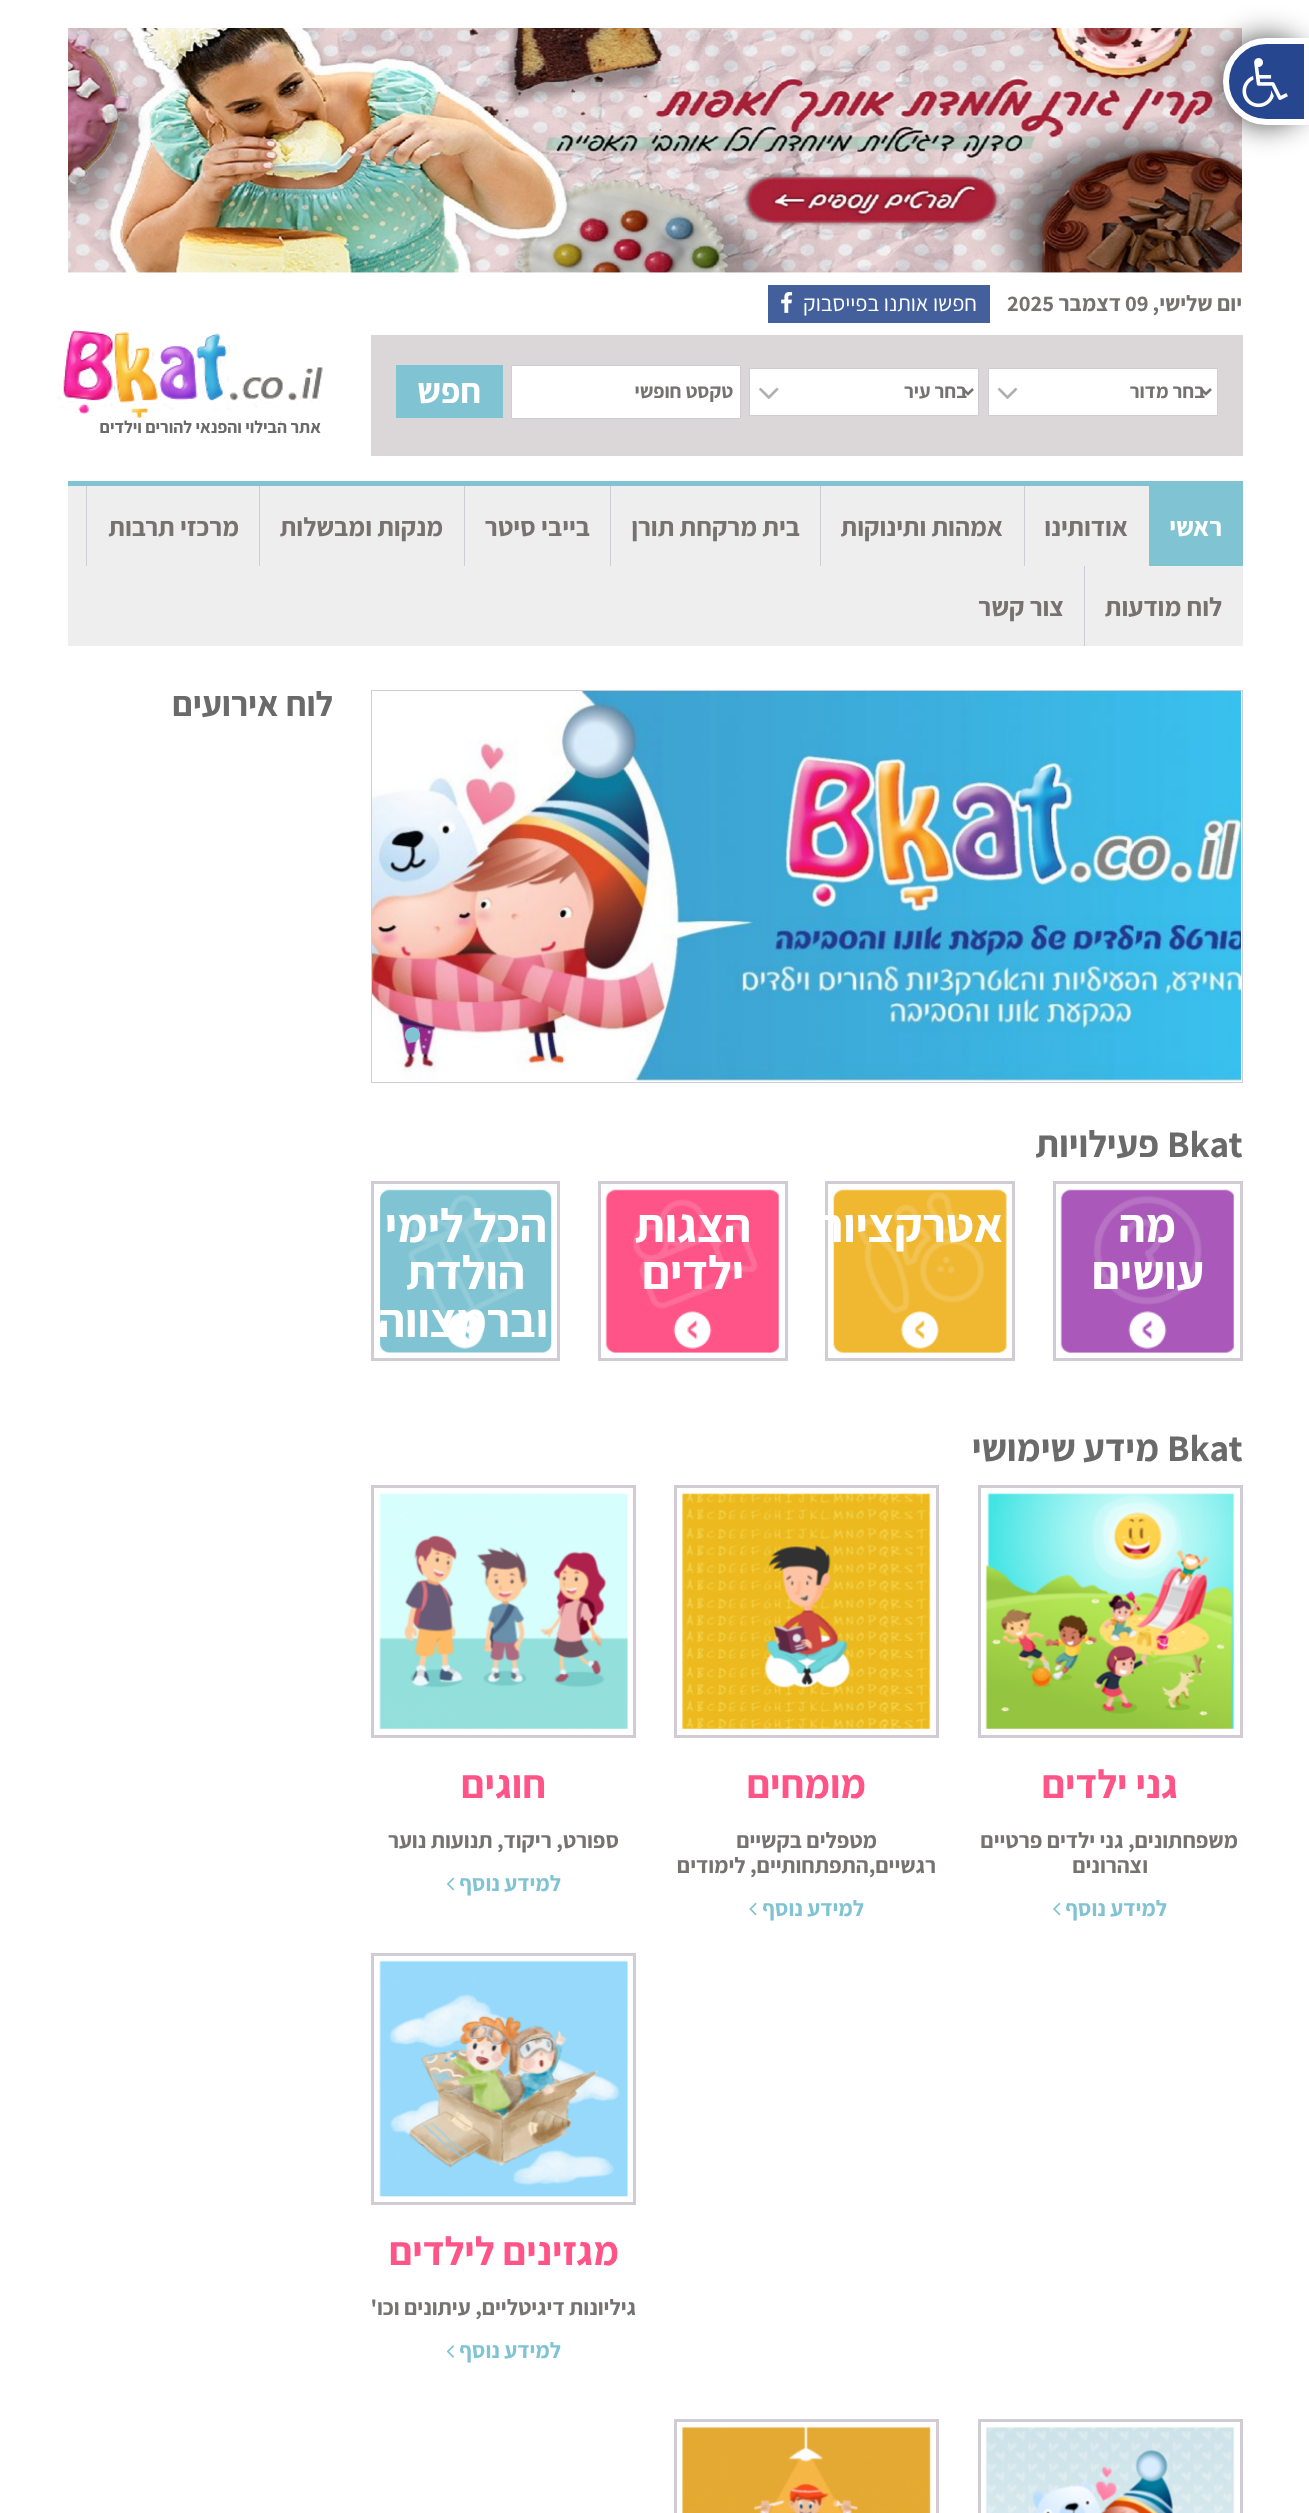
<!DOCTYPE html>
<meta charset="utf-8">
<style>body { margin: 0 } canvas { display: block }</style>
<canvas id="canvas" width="1309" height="2513"></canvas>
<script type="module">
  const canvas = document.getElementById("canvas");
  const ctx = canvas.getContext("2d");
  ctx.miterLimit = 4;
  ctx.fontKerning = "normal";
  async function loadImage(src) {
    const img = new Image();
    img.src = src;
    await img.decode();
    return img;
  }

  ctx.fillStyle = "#ffffff";
  ctx.fillRect(0, 0, 1309, 2513);
  ctx.drawImage(await loadImage("img2.png"), 68, 28, 1174, 245);
  ctx.fillStyle = "rgba(0, 0, 0, 0.75)";
  ctx.filter = "blur(15px)";
  ctx.beginPath();
  ctx.roundRect(1223, 38, 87, 87, 43.5);
  ctx.fill();
  ctx.filter = "none";
  ctx.fillStyle = "#274690";
  ctx.beginPath();
  ctx.moveTo(1266.5, 41);
  ctx.lineTo(1307, 41);
  ctx.lineTo(1307, 122);
  ctx.lineTo(1266.5, 122);
  ctx.bezierCurveTo(1244, 122, 1226, 104, 1226, 81.5);
  ctx.bezierCurveTo(1226, 59, 1244, 41, 1266.5, 41);
  ctx.closePath();
  ctx.fill();
  ctx.strokeStyle = "#ffffff";
  ctx.lineWidth = 6;
  ctx.stroke();
  ctx.drawImage(await loadImage("img1.png"), 1242, 58, 46, 50);
  ctx.direction = "rtl";
  ctx.font = "bold 22.5px Assistant";
  ctx.fillStyle = "#757271";
  ctx.fillText("יום שלישי,", 1242, 311);
  ctx.direction = "ltr";
  ctx.fillText("09", 1125, 311);
  ctx.direction = "rtl";
  ctx.fillText("דצמבר", 1121, 311);
  ctx.direction = "ltr";
  ctx.fillText("2025", 1007, 311);
  ctx.fillStyle = "#43609c";
  ctx.fillRect(768, 285, 222, 38);
  ctx.direction = "rtl";
  ctx.font = "22.5px Assistant";
  ctx.fillStyle = "#ffffff";
  ctx.fillText("חפשו אותנו בפייסבוק", 977, 311);
  ctx.drawImage(await loadImage("img3.png"), 781, 292, 12, 21);
  ctx.fillStyle = "#dbd7d8";
  ctx.fillRect(371, 335, 872, 121);
  ctx.fillStyle = "#ffffff";
  ctx.beginPath();
  ctx.rect(988.5, 368.5, 229, 47);
  ctx.fill();
  ctx.strokeStyle = "#d1cbd3";
  ctx.lineWidth = 1;
  ctx.stroke();
  ctx.beginPath();
  ctx.moveTo(1201, 389);
  ctx.lineTo(1206, 394);
  ctx.lineTo(1211, 389);
  ctx.strokeStyle = "#757271";
  ctx.lineWidth = 2.5;
  ctx.stroke();
  ctx.font = "bold 20px Assistant";
  ctx.fillStyle = "#757271";
  ctx.fillText("בחר מדור", 1205, 398);
  ctx.drawImage(await loadImage("img4.png"), 997, 387, 21, 12);
  ctx.fillStyle = "#ffffff";
  ctx.beginPath();
  ctx.rect(749.5, 368.5, 229, 47);
  ctx.fill();
  ctx.strokeStyle = "#d1cbd3";
  ctx.lineWidth = 1;
  ctx.stroke();
  ctx.beginPath();
  ctx.moveTo(963, 389);
  ctx.lineTo(968, 394);
  ctx.lineTo(973, 389);
  ctx.strokeStyle = "#757271";
  ctx.lineWidth = 2.5;
  ctx.stroke();
  ctx.fillStyle = "#757271";
  ctx.fillText("בחר עיר", 967, 398);
  ctx.drawImage(await loadImage("img5.png"), 759, 387, 20, 12);
  ctx.fillStyle = "#ffffff";
  ctx.beginPath();
  ctx.rect(511.5, 365.5, 229, 53);
  ctx.fill();
  ctx.strokeStyle = "#d1cbd3";
  ctx.lineWidth = 1;
  ctx.stroke();
  ctx.fillStyle = "#757271";
  ctx.fillText("טקסט חופשי", 733, 398);
  ctx.fillStyle = "#80c3d2";
  ctx.fillRect(396, 365, 107, 53);
  ctx.font = "bold 35px Assistant";
  ctx.fillStyle = "#ffffff";
  ctx.fillText("חפש", 481, 403);
  ctx.drawImage(await loadImage("img6.png"), 56, 329, 267, 94);
  ctx.font = "bold 17.5px Assistant";
  ctx.fillStyle = "#6a6a6a";
  ctx.fillText("אתר הבילוי והפנאי להורים וילדים", 321, 433);
  ctx.fillStyle = "#80c3d2";
  ctx.fillRect(68, 481, 1175, 5);
  ctx.fillStyle = "#eeeeee";
  ctx.fillRect(68, 486, 1175, 160);
  ctx.fillStyle = "#80c3d2";
  ctx.fillRect(1149, 486, 94, 80);
  ctx.font = "bold 26.25px Assistant";
  ctx.fillStyle = "#ffffff";
  ctx.fillText("ראשי", 1222, 536);
  ctx.fillStyle = "#d1cbd3";
  ctx.fillRect(1024, 486, 1, 80);
  ctx.fillStyle = "#757271";
  ctx.fillText("אודותינו", 1128, 536);
  ctx.fillStyle = "#d1cbd3";
  ctx.fillRect(820, 486, 1, 80);
  ctx.fillStyle = "#757271";
  ctx.fillText("אמהות ותינוקות", 1003, 536);
  ctx.fillStyle = "#d1cbd3";
  ctx.fillRect(610, 486, 1, 80);
  ctx.fillStyle = "#757271";
  ctx.fillText("בית מרקחת תורן", 800, 536);
  ctx.fillStyle = "#d1cbd3";
  ctx.fillRect(464, 486, 1, 80);
  ctx.fillStyle = "#757271";
  ctx.fillText("בייבי סיטר", 590, 536);
  ctx.fillStyle = "#d1cbd3";
  ctx.fillRect(259, 486, 1, 80);
  ctx.fillStyle = "#757271";
  ctx.fillText("מנקות ומבשלות", 443, 536);
  ctx.fillStyle = "#d1cbd3";
  ctx.fillRect(86, 486, 1, 80);
  ctx.fillStyle = "#757271";
  ctx.fillText("מרכזי תרבות", 239, 536);
  ctx.fillStyle = "#d1cbd3";
  ctx.fillRect(1084, 566, 1, 80);
  ctx.fillStyle = "#757271";
  ctx.fillText("לוח מודעות", 1222, 616);
  ctx.fillText("צור קשר", 1064, 616);
  ctx.font = "bold 35px Assistant";
  ctx.fillStyle = "#6a6a6a";
  ctx.fillText("לוח אירועים", 333, 716);
  ctx.strokeRect(371.5, 690.5, 871, 392);
  ctx.drawImage(await loadImage("img7.png"), 372, 691, 869, 390);
  ctx.fillStyle = "#80c3d2";
  ctx.beginPath();
  ctx.moveTo(419, 1031);
  ctx.bezierCurveTo(424, 1039.5, 411, 1047.5, 406, 1039);
  ctx.bezierCurveTo(401, 1030.5, 414, 1022.5, 419, 1031);
  ctx.closePath();
  ctx.fill();
  ctx.direction = "ltr";
  ctx.font = "bold 37.5px Assistant";
  ctx.fillStyle = "#6a6a6a";
  ctx.fillText("Bkat", 1167, 1157);
  ctx.direction = "rtl";
  ctx.fillText("פעילויות", 1159, 1157);
  ctx.lineWidth = 3;
  ctx.strokeRect(1054.5, 1182.5, 187, 177);
  ctx.drawImage(await loadImage("img8.png"), 1060, 1189, 175, 164);
  ctx.font = "bold 47.5px Assistant";
  ctx.fillStyle = "#ffffff";
  ctx.fillText("מה", 1176, 1242);
  ctx.fillText("עושים", 1204, 1289);
  ctx.drawImage(await loadImage("img9.png"), 1128, 1311, 39, 38);
  ctx.strokeRect(826.5, 1182.5, 187, 177);
  ctx.drawImage(await loadImage("img10.png"), 833, 1189, 174, 164);
  ctx.fillText("אטרקציות", 1003, 1242);
  ctx.drawImage(await loadImage("img11.png"), 901, 1311, 38, 38);
  ctx.strokeRect(599.5, 1182.5, 187, 177);
  ctx.drawImage(await loadImage("img12.png"), 605, 1189, 175, 164);
  ctx.fillText("הצגות", 751, 1242);
  ctx.fillText("ילדים", 744, 1289);
  ctx.drawImage(await loadImage("img13.png"), 673, 1311, 39, 38);
  ctx.strokeRect(372.5, 1182.5, 186, 177);
  ctx.drawImage(await loadImage("img14.png"), 380, 1189, 172, 164);
  ctx.fillText("הכל לימי", 547, 1242);
  ctx.fillText("הולדת", 525, 1289);
  ctx.fillText("וברמצווה", 548, 1337);
  ctx.drawImage(await loadImage("img15.png"), 447, 1311, 37, 38);
  ctx.direction = "ltr";
  ctx.font = "bold 37.5px Assistant";
  ctx.fillStyle = "#6a6a6a";
  ctx.fillText("Bkat", 1167, 1461);
  ctx.direction = "rtl";
  ctx.fillText("מידע שימושי", 1159, 1461);
  ctx.strokeRect(979.5, 1486.5, 262, 250);
  ctx.drawImage(await loadImage("img16.png"), 985, 1493, 250, 236);
  ctx.font = "bold 40px Assistant";
  ctx.fillStyle = "#ff5487";
  ctx.fillText("גני ילדים", 1178, 1798);
  ctx.font = "bold 22.5px Assistant";
  ctx.fillStyle = "#757271";
  ctx.fillText("משפחתונים, גני ילדים פרטיים", 1238, 1848);
  ctx.fillText("וצהרונים", 1148, 1873);
  ctx.fillStyle = "#80c3d2";
  ctx.fillText("למידע נוסף", 1167, 1916);
  ctx.drawImage(await loadImage("img17.png"), 1053, 1902, 8, 14);
  ctx.strokeRect(675.5, 1486.5, 262, 250);
  ctx.drawImage(await loadImage("img18.png"), 682, 1493, 249, 236);
  ctx.font = "bold 40px Assistant";
  ctx.fillStyle = "#ff5487";
  ctx.fillText("מומחים", 866, 1798);
  ctx.font = "bold 22.5px Assistant";
  ctx.fillStyle = "#757271";
  ctx.fillText("מטפלים בקשיים", 877, 1848);
  ctx.fillText("רגשיים,התפתחותיים, לימודים", 936, 1873);
  ctx.fillStyle = "#80c3d2";
  ctx.fillText("למידע נוסף", 864, 1916);
  ctx.drawImage(await loadImage("img19.png"), 749, 1902, 8, 14);
  ctx.strokeRect(372.5, 1486.5, 262, 250);
  ctx.drawImage(await loadImage("img20.png"), 379, 1493, 249, 236);
  ctx.font = "bold 40px Assistant";
  ctx.fillStyle = "#ff5487";
  ctx.fillText("חוגים", 546, 1798);
  ctx.font = "bold 22.5px Assistant";
  ctx.fillStyle = "#757271";
  ctx.fillText("ספורט, ריקוד, תנועות נוער", 619, 1848);
  ctx.fillStyle = "#80c3d2";
  ctx.fillText("למידע נוסף", 561, 1891);
  ctx.drawImage(await loadImage("img21.png"), 446, 1877, 9, 14);
  ctx.strokeRect(372.5, 1954.5, 262, 249);
  ctx.drawImage(await loadImage("img22.png"), 379, 1960, 249, 237);
  ctx.font = "bold 40px Assistant";
  ctx.fillStyle = "#ff5487";
  ctx.fillText("מגזינים לילדים", 619, 2265);
  ctx.font = "bold 22.5px Assistant";
  ctx.fillStyle = "#757271";
  ctx.fillText("גיליונות דיגיטליים, עיתונים וכו'", 636, 2315);
  ctx.fillStyle = "#80c3d2";
  ctx.fillText("למידע נוסף", 561, 2358);
  ctx.drawImage(await loadImage("img23.png"), 446, 2345, 9, 13);
  ctx.strokeRect(979.5, 2420.5, 262, 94);
  ctx.drawImage(await loadImage("img24.png"), 985, 2427, 250, 86);
  ctx.strokeRect(675.5, 2420.5, 262, 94);
  ctx.drawImage(await loadImage("img25.png"), 682, 2427, 249, 86);
</script>
